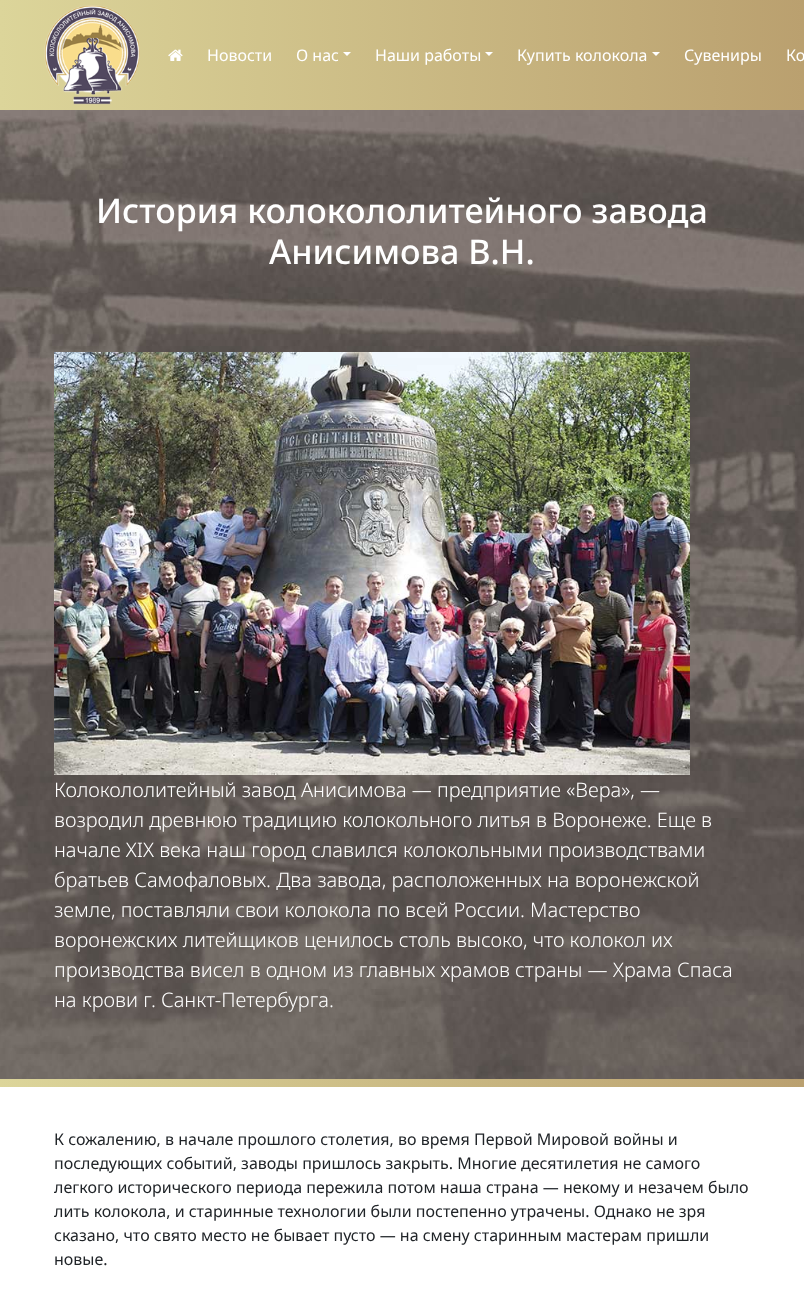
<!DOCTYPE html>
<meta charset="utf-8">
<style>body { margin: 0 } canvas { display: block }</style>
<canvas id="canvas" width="804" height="1292"></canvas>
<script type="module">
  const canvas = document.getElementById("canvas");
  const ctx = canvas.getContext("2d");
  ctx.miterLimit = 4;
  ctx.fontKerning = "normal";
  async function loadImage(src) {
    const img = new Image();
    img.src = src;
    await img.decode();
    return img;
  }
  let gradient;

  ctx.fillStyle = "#ffffff";
  ctx.fillRect(0, 0, 804, 1292);
  gradient = ctx.createLinearGradient(0, 55, 804, 55);
  gradient.addColorStop(0, "#dcd59a");
  gradient.addColorStop(1, "#baa06f");
  ctx.fillStyle = gradient;
  ctx.fillRect(0, 0, 804, 110);
  ctx.drawImage(await loadImage("img1.png"), 44, 5, 96, 100);
  ctx.drawImage(await loadImage("img2.png"), 168, 49, 15, 12);
  ctx.font = "16px Noto Sans";
  ctx.fillStyle = "#ffffff";
  ctx.fillText("Новости", 207, 61);
  ctx.fillText("О нас", 296, 61);
  ctx.beginPath();
  ctx.moveTo(343, 52);
  ctx.lineTo(351, 52);
  ctx.lineTo(347, 56);
  ctx.closePath();
  ctx.fill();
  ctx.fillText("Наши работы", 375, 61);
  ctx.beginPath();
  ctx.moveTo(485, 52);
  ctx.lineTo(493, 52);
  ctx.lineTo(489, 56);
  ctx.closePath();
  ctx.fill();
  ctx.fillText("Купить колокола", 517, 61);
  ctx.beginPath();
  ctx.moveTo(652, 52);
  ctx.lineTo(660, 52);
  ctx.lineTo(656, 56);
  ctx.closePath();
  ctx.fill();
  ctx.fillText("Сувениры", 684, 61);
  ctx.fillText("Ко", 786, 61);
  ctx.drawImage(await loadImage("img3.png"), 0, 110, 804, 969);
  ctx.font = "500 34.1px Noto Sans";
  ctx.fillText("История колокололитейного завода", 96, 223);
  ctx.fillText("Анисимова В.Н.", 269, 264);
  ctx.drawImage(await loadImage("img4.png"), 54, 352, 636, 423);
  ctx.font = "300 20px Noto Sans";
  ctx.fillText("Колокололитейный завод Анисимова — предприятие «Вера», —", 54, 797);
  ctx.fillText("возродил древнюю традицию колокольного литья в Воронеже. Еще в", 54, 827);
  ctx.fillText("начале XIX века наш город славился колокольными производствами", 54, 857);
  ctx.fillText("братьев Самофаловых. Два завода, расположенных на воронежской", 54, 887);
  ctx.fillText("земле, поставляли свои колокола по всей России. Мастерство", 54, 917);
  ctx.fillText("воронежских литейщиков ценилось столь высоко, что колокол их", 54, 947);
  ctx.fillText("производства висел в одном из главных храмов страны — Храма Спаса", 54, 977);
  ctx.fillText("на крови г. Санкт-Петербурга.", 54, 1007);
  gradient = ctx.createLinearGradient(0, 1083, 804, 1083);
  gradient.addColorStop(0, "#dcd59a");
  gradient.addColorStop(1, "#baa06f");
  ctx.fillStyle = gradient;
  ctx.fillRect(0, 1079, 804, 8);
  ctx.font = "16px Noto Sans";
  ctx.fillStyle = "#212529";
  ctx.fillText("К сожалению, в начале прошлого столетия, во время Первой Мировой войны и", 54, 1145);
  ctx.fillText("последующих событий, заводы пришлось закрыть. Многие десятилетия не самого", 54, 1169);
  ctx.fillText("легкого исторического периода пережила потом наша страна — некому и незачем было", 54, 1193);
  ctx.fillText("лить колокола, и старинные технологии были постепенно утрачены. Однако не зря", 54, 1217);
  ctx.fillText("сказано, что свято место не бывает пусто — на смену старинным мастерам пришли", 54, 1241);
  ctx.fillText("новые.", 54, 1265);
</script>
